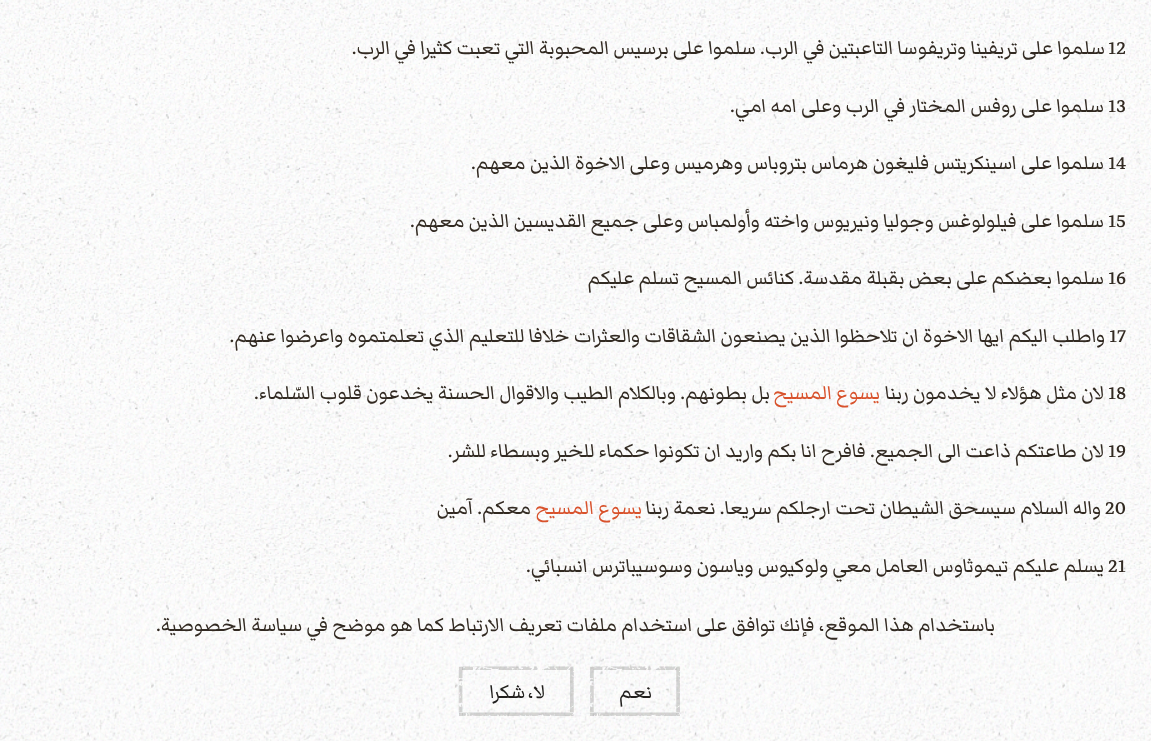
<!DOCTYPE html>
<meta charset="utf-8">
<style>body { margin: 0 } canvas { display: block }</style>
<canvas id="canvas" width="1151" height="741"></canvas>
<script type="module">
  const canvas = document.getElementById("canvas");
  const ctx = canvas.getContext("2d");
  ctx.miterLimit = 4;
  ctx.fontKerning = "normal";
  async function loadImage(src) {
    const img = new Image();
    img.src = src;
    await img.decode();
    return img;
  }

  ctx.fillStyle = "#ffffff";
  ctx.fillRect(0, 0, 1151, 741);
  ctx.drawImage(await loadImage("img1.png"), 0, 0, 1151, 584);
  ctx.font = "25px Markazi Text";
  ctx.fillStyle = "#322a22";
  ctx.fillText("12", 1108, 54);
  ctx.direction = "rtl";
  ctx.fillText("سلموا على تريفينا وتريفوسا التاعبتين في الرب. سلموا على برسيس المحبوبة التي تعبت كثيرا في الرب.", 1105, 54);
  ctx.direction = "ltr";
  ctx.fillText("13", 1108, 112);
  ctx.direction = "rtl";
  ctx.fillText("سلموا على روفس المختار في الرب وعلى امه امي.", 1104, 112);
  ctx.direction = "ltr";
  ctx.fillText("14", 1108, 169);
  ctx.direction = "rtl";
  ctx.fillText("سلموا على اسينكريتس فليغون هرماس بتروباس وهرميس وعلى الاخوة الذين معهم.", 1104, 169);
  ctx.direction = "ltr";
  ctx.fillText("15", 1108, 227);
  ctx.direction = "rtl";
  ctx.fillText("سلموا على فيلولوغس وجوليا ونيريوس واخته وأولمباس وعلى جميع القديسين الذين معهم.", 1104, 227);
  ctx.direction = "ltr";
  ctx.fillText("16", 1108, 284);
  ctx.direction = "rtl";
  ctx.fillText("سلموا بعضكم على بعض بقبلة مقدسة. كنائس المسيح تسلم عليكم", 1104, 284);
  ctx.direction = "ltr";
  ctx.fillText("17", 1109, 342);
  ctx.direction = "rtl";
  ctx.fillText("واطلب اليكم ايها الاخوة ان تلاحظوا الذين يصنعون الشقاقات والعثرات خلافا للتعليم الذي تعلمتموه واعرضوا عنهم.", 1105, 342);
  ctx.direction = "ltr";
  ctx.fillText("18", 1108, 399);
  ctx.direction = "rtl";
  ctx.fillText("لان مثل هؤلاء لا يخدمون ربنا", 1104, 399);
  ctx.fillStyle = "#d8522c";
  ctx.fillText("يسوع المسيح", 880, 399);
  ctx.fillStyle = "#322a22";
  ctx.fillText("بل بطونهم. وبالكلام الطيب والاقوال الحسنة يخدعون قلوب السّلماء.", 770, 399);
  ctx.direction = "ltr";
  ctx.fillText("19", 1108, 457);
  ctx.direction = "rtl";
  ctx.fillText("لان طاعتكم ذاعت الى الجميع. فافرح انا بكم واريد ان تكونوا حكماء للخير وبسطاء للشر.", 1104, 457);
  ctx.direction = "ltr";
  ctx.fillText("20", 1105, 514);
  ctx.direction = "rtl";
  ctx.fillText("واله السلام سيسحق الشيطان تحت ارجلكم سريعا. نعمة ربنا", 1101, 514);
  ctx.fillStyle = "#d8522c";
  ctx.fillText("يسوع المسيح", 642, 514);
  ctx.fillStyle = "#322a22";
  ctx.fillText("معكم. آمين", 531, 514);
  ctx.direction = "ltr";
  ctx.fillText("21", 1108, 572);
  ctx.direction = "rtl";
  ctx.fillText("يسلم عليكم تيموثاوس العامل معي ولوكيوس وياسون وسوسيباترس انسبائي.", 1104, 572);
  ctx.drawImage(await loadImage("img2.png"), 0, 584, 1151, 157);
  ctx.fillText("باستخدام هذا الموقع، فإنك توافق على استخدام ملفات تعريف الارتباط كما هو موضح في سياسة الخصوصية.", 995, 631);
  ctx.drawImage(await loadImage("img3.png"), 590, 666, 90, 50);
  ctx.letterSpacing = "0.25px";
  ctx.fillStyle = "#22201e";
  ctx.fillText("نعم", 652, 698);
  ctx.drawImage(await loadImage("img4.png"), 458, 666, 116, 50);
  ctx.wordSpacing = "-2px";
  ctx.fillText("لا، شكرا", 545, 698);
</script>
